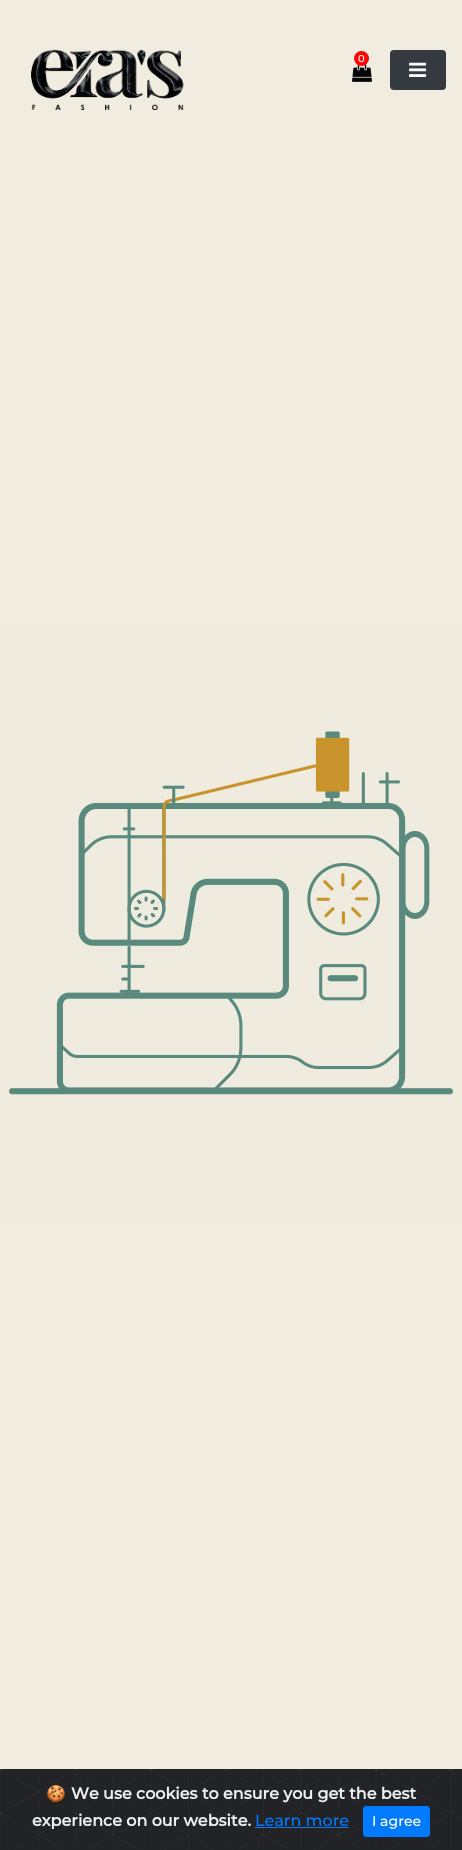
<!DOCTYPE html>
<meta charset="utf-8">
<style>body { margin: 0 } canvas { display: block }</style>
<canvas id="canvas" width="462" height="1850"></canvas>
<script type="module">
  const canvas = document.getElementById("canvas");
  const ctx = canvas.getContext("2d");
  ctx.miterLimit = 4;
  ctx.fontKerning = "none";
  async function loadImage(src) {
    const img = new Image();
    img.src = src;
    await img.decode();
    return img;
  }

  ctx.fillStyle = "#f0ece0";
  ctx.fillRect(0, 0, 462, 1850);
  ctx.drawImage(await loadImage("img1.png"), 31, 49, 153, 61);
  ctx.drawImage(await loadImage("img2.png"), 352, 64, 20, 18);
  ctx.fillStyle = "#ff0000";
  ctx.beginPath();
  ctx.arc(361.5, 58.5, 7.5, 0, Math.PI * 2);
  ctx.fill();
  ctx.font = "500 10px Montserrat";
  ctx.fillStyle = "#ffffff";
  ctx.fillText("0", 358, 62);
  ctx.fillStyle = "#343a40";
  ctx.beginPath();
  ctx.roundRect(390, 50, 56, 40, 4);
  ctx.fill();
  ctx.drawImage(await loadImage("img3.png"), 409, 62, 18, 15);
  ctx.drawImage(await loadImage("img4.png"), 1, 625, 461, 599);
  ctx.fillStyle = "#212327";
  ctx.fillRect(0, 1769, 462, 81);
  ctx.drawImage(await loadImage("img5.png"), 0, 1769, 460, 80);
  ctx.font = "bold 16px Noto Color Emoji";
  ctx.fillStyle = "#ecf0f1";
  ctx.fillText("🍪", 46, 1799);
  ctx.font = "bold 16px Montserrat";
  ctx.fillText("We use cookies to ensure you get the best", 71, 1799);
  ctx.fillText("experience on our website.", 32, 1826);
  ctx.font = "500 16px Montserrat";
  ctx.fillStyle = "#007bff";
  ctx.fillText("Learn more", 255, 1826);
  ctx.fillRect(255, 1827, 94, 1);
  ctx.beginPath();
  ctx.roundRect(363.5, 1806.5, 66, 30, 2.5);
  ctx.fill();
  ctx.strokeStyle = "#007bff";
  ctx.stroke();
  ctx.font = "500 14px Montserrat";
  ctx.fillStyle = "#ffffff";
  ctx.fillText("I agree", 372, 1826);
</script>
